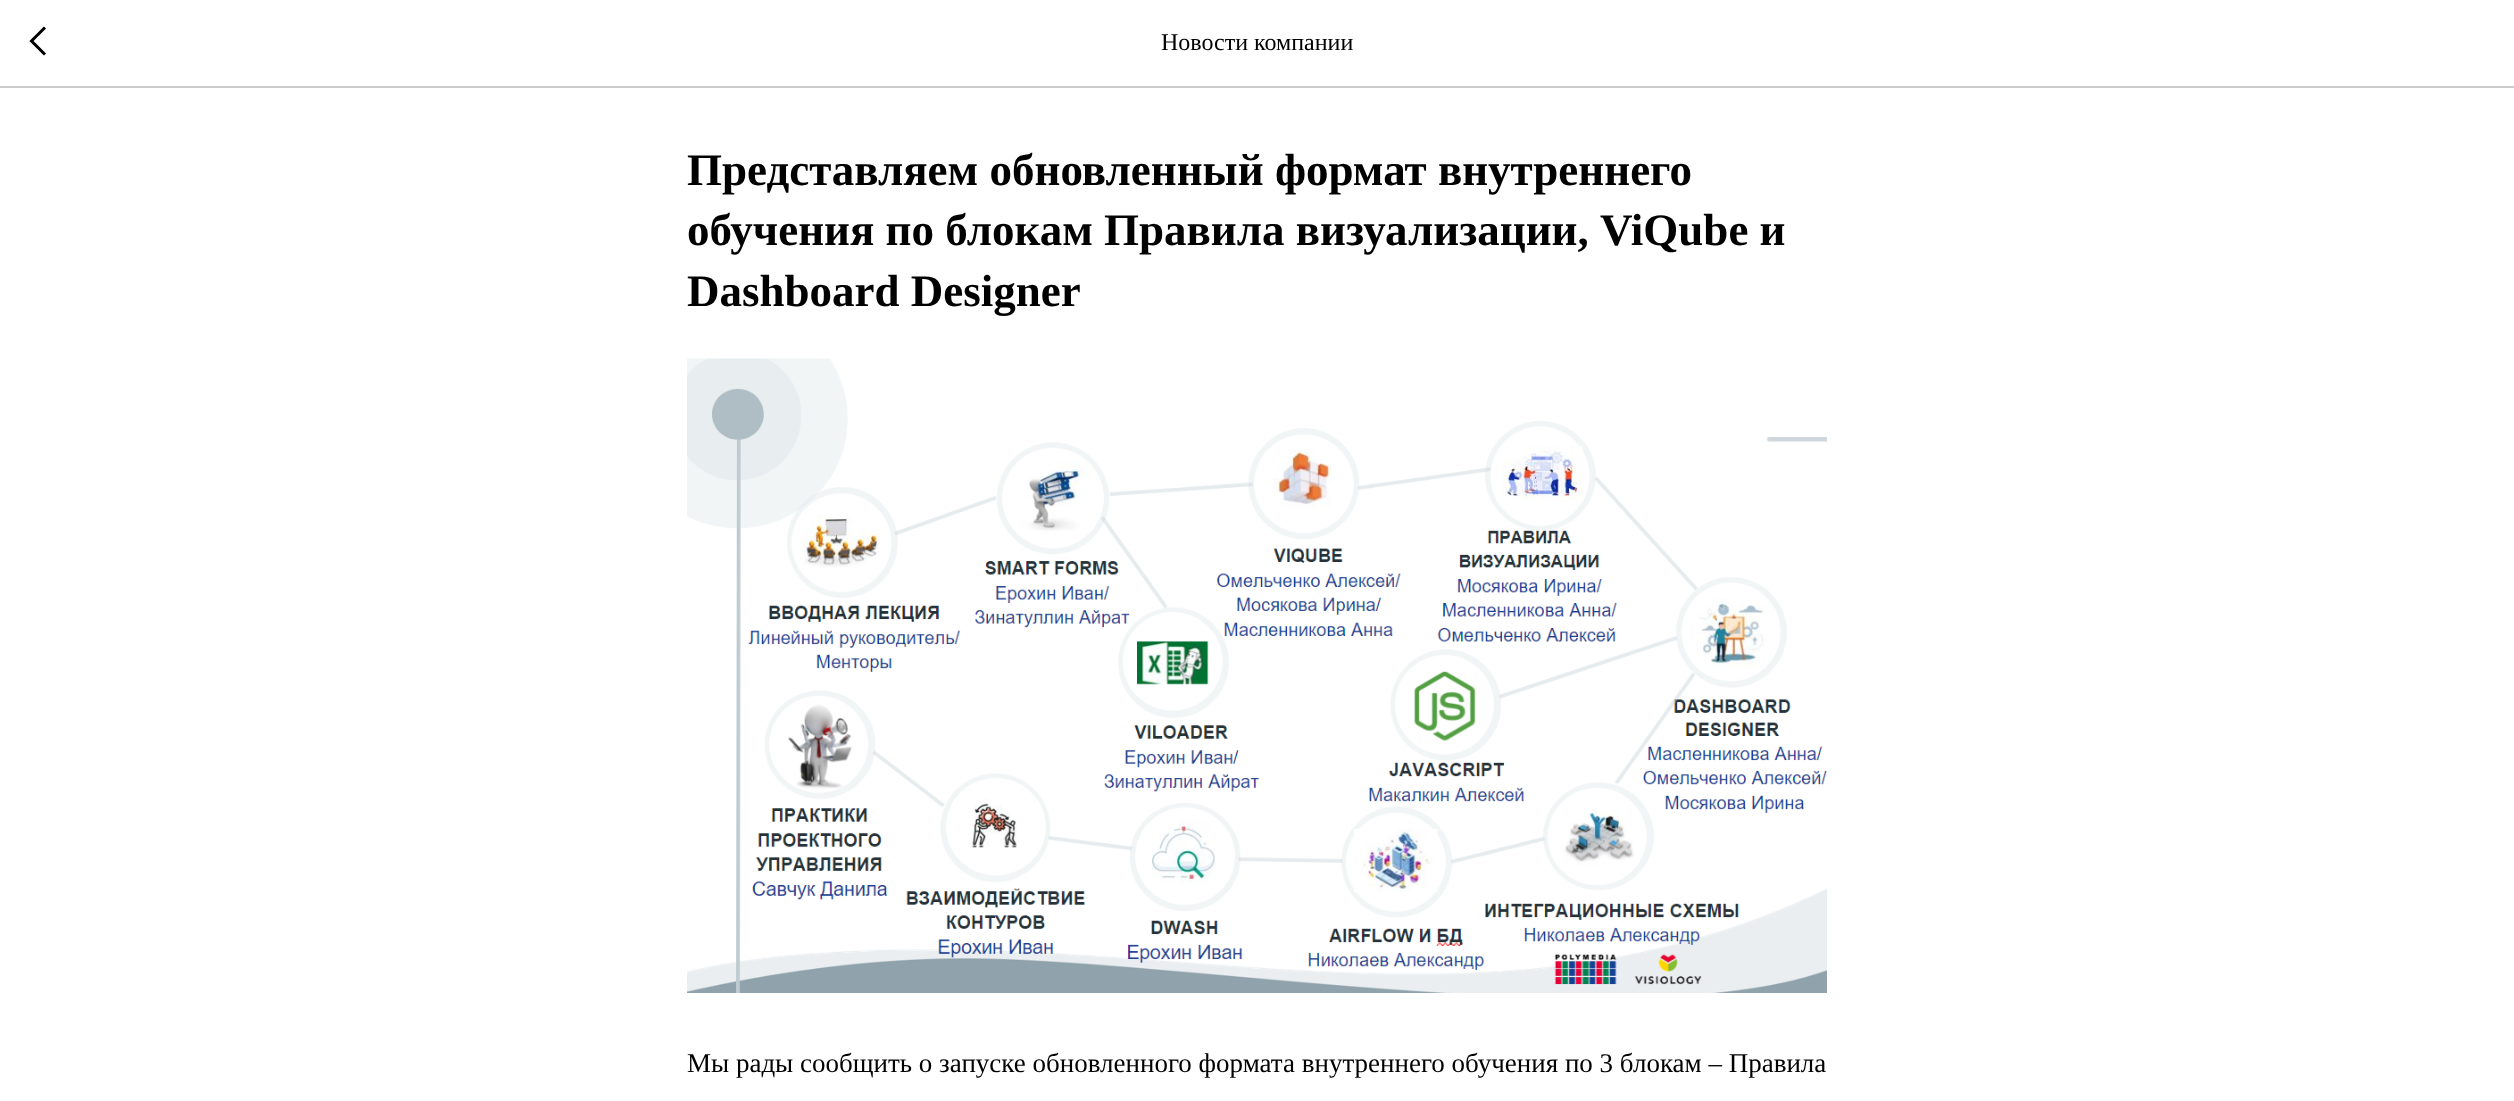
<!DOCTYPE html>
<meta charset="utf-8">
<style>body { margin: 0 } canvas { display: block }</style>
<canvas id="canvas" width="2514" height="1101"></canvas>
<script type="module">
  const canvas = document.getElementById("canvas");
  const ctx = canvas.getContext("2d");
  ctx.miterLimit = 4;
  ctx.fontKerning = "normal";
  async function loadImage(src) {
    const img = new Image();
    img.src = src;
    await img.decode();
    return img;
  }

  ctx.fillStyle = "#ffffff";
  ctx.fillRect(0, 0, 2514, 1101);
  ctx.fillStyle = "#cccccc";
  ctx.fillRect(0, 86, 2514, 2);
  ctx.beginPath();
  ctx.moveTo(45, 54.5);
  ctx.lineTo(31.5, 41);
  ctx.lineTo(45, 27.5);
  ctx.strokeStyle = "#000000";
  ctx.lineWidth = 3;
  ctx.stroke();
  ctx.font = "24px Liberation Serif";
  ctx.fillStyle = "#000000";
  ctx.fillText("Новости компании", 1161, 50);
  ctx.font = "bold 45px Liberation Serif";
  ctx.fillText("Представляем обновленный формат внутреннего", 687, 185);
  ctx.fillText("обучения по блокам Правила визуализации, ViQube и", 687, 245);
  ctx.fillText("Dashboard Designer", 687, 306);
  ctx.drawImage(await loadImage("img1.png"), 687, 358, 1140, 635);
  ctx.font = "27px Liberation Serif";
  ctx.fillText("Мы рады сообщить о запуске обновленного формата внутреннего обучения по 3 блокам – Правила", 687, 1072);
</script>
